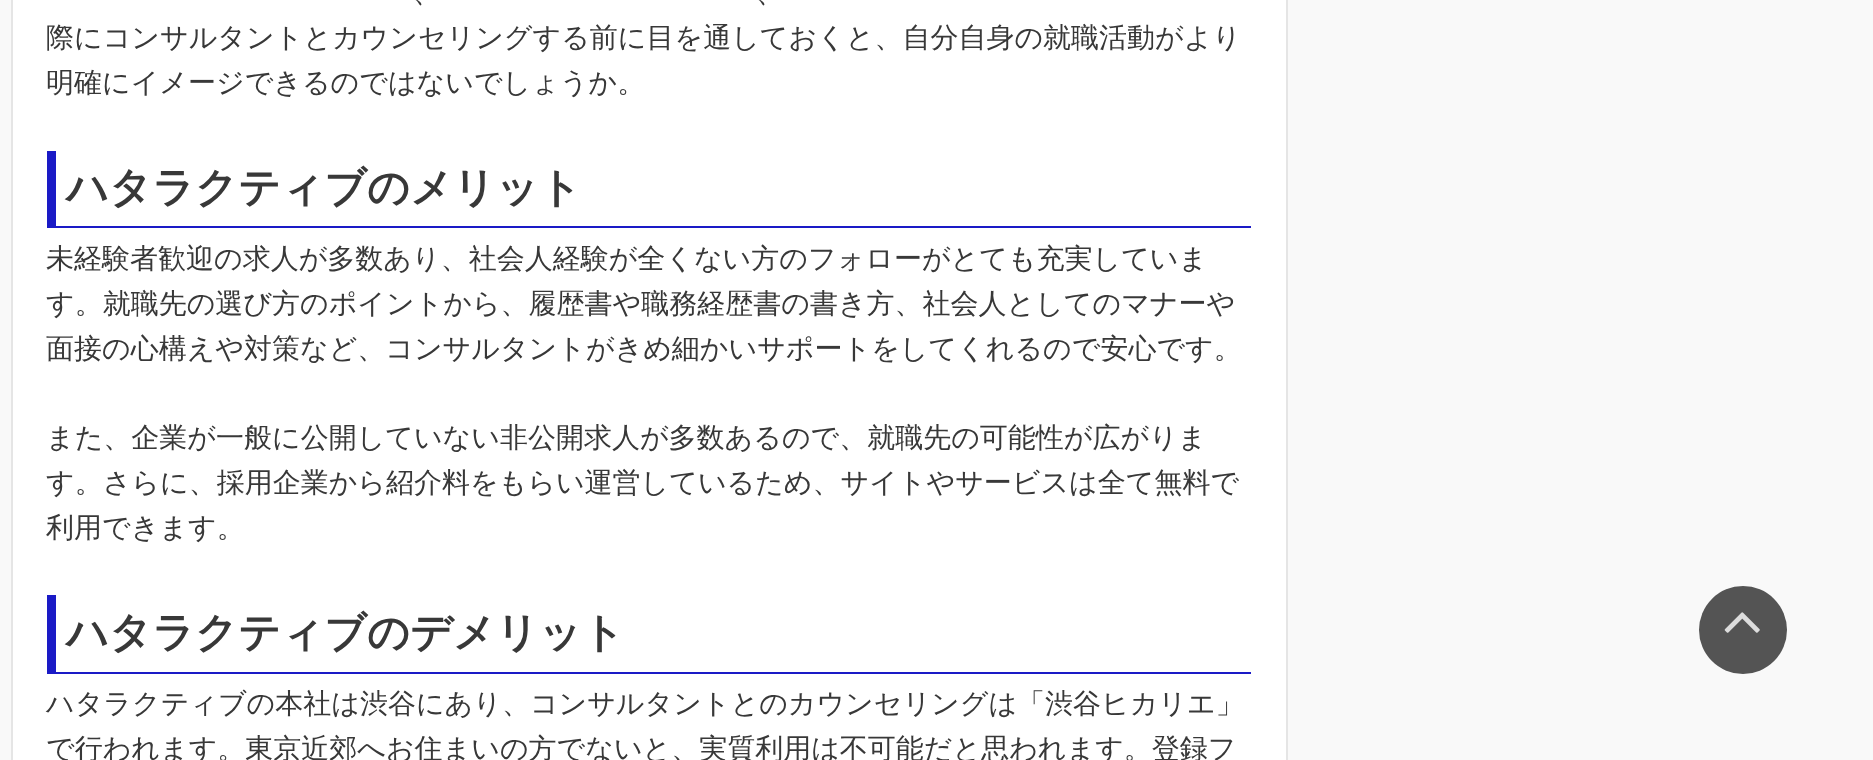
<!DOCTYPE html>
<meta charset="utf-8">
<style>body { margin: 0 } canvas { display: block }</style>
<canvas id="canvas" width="1873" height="760"></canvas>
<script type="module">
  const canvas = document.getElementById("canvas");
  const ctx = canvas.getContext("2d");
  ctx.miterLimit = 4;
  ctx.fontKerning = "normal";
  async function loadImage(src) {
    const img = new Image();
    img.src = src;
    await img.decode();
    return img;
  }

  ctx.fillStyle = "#f9f9f9";
  ctx.fillRect(0, 0, 1873, 760);
  ctx.fillStyle = "#ffffff";
  ctx.beginPath();
  ctx.rect(12, -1, 1275, 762);
  ctx.fill();
  ctx.strokeStyle = "#e5e5e5";
  ctx.lineWidth = 2;
  ctx.stroke();
  ctx.font = "500 28px WenQuanYi Zen Hei";
  ctx.fillStyle = "#383838";
  ctx.fillText("、", 413, 2);
  ctx.fillText("、", 756, 2);
  ctx.fillText("際にコンサルタントとカウンセリングする前に目を通しておくと、自分自身の就職活動がより", 46, 47);
  ctx.fillText("明確にイメージできるのではないでしょうか。", 46, 92);
  ctx.fillStyle = "#1a1ac6";
  ctx.fillRect(56, 226, 1195, 2);
  ctx.fillRect(47, 151, 9, 77);
  ctx.font = "bold 42px WenQuanYi Zen Hei";
  ctx.fillStyle = "#383838";
  ctx.fillText("ハタラクティブのメリット", 66, 202);
  ctx.font = "500 28px WenQuanYi Zen Hei";
  ctx.fillText("未経験者歓迎の求人が多数あり、社会人経験が全くない方のフォローがとても充実していま", 46, 268);
  ctx.fillText("す。就職先の選び方のポイントから、履歴書や職務経歴書の書き方、社会人としてのマナーや", 46, 313);
  ctx.fillText("面接の心構えや対策など、コンサルタントがきめ細かいサポートをしてくれるので安心です。", 46, 358);
  ctx.fillText("また、企業が一般に公開していない非公開求人が多数あるので、就職先の可能性が広がりま", 46, 447);
  ctx.fillText("す。さらに、採用企業から紹介料をもらい運営しているため、サイトやサービスは全て無料で", 46, 492);
  ctx.fillText("利用できます。", 46, 537);
  ctx.fillStyle = "#1a1ac6";
  ctx.fillRect(56, 672, 1195, 2);
  ctx.fillRect(47, 595, 9, 79);
  ctx.font = "bold 42px WenQuanYi Zen Hei";
  ctx.fillStyle = "#383838";
  ctx.fillText("ハタラクティブのデメリット", 66, 647);
  ctx.font = "500 28px WenQuanYi Zen Hei";
  ctx.fillText("ハタラクティブの本社は渋谷にあり、コンサルタントとのカウンセリングは「渋谷ヒカリエ」", 46, 713);
  ctx.fillText("で行われます。東京近郊へお住まいの方でないと、実質利用は不可能だと思われます。登録フ", 46, 758);
  ctx.fillStyle = "#545454";
  ctx.beginPath();
  ctx.arc(1743, 630, 44, 0, Math.PI * 2);
  ctx.fill();
  ctx.drawImage(await loadImage("img1.png"), 1724, 612, 36, 21);
</script>
